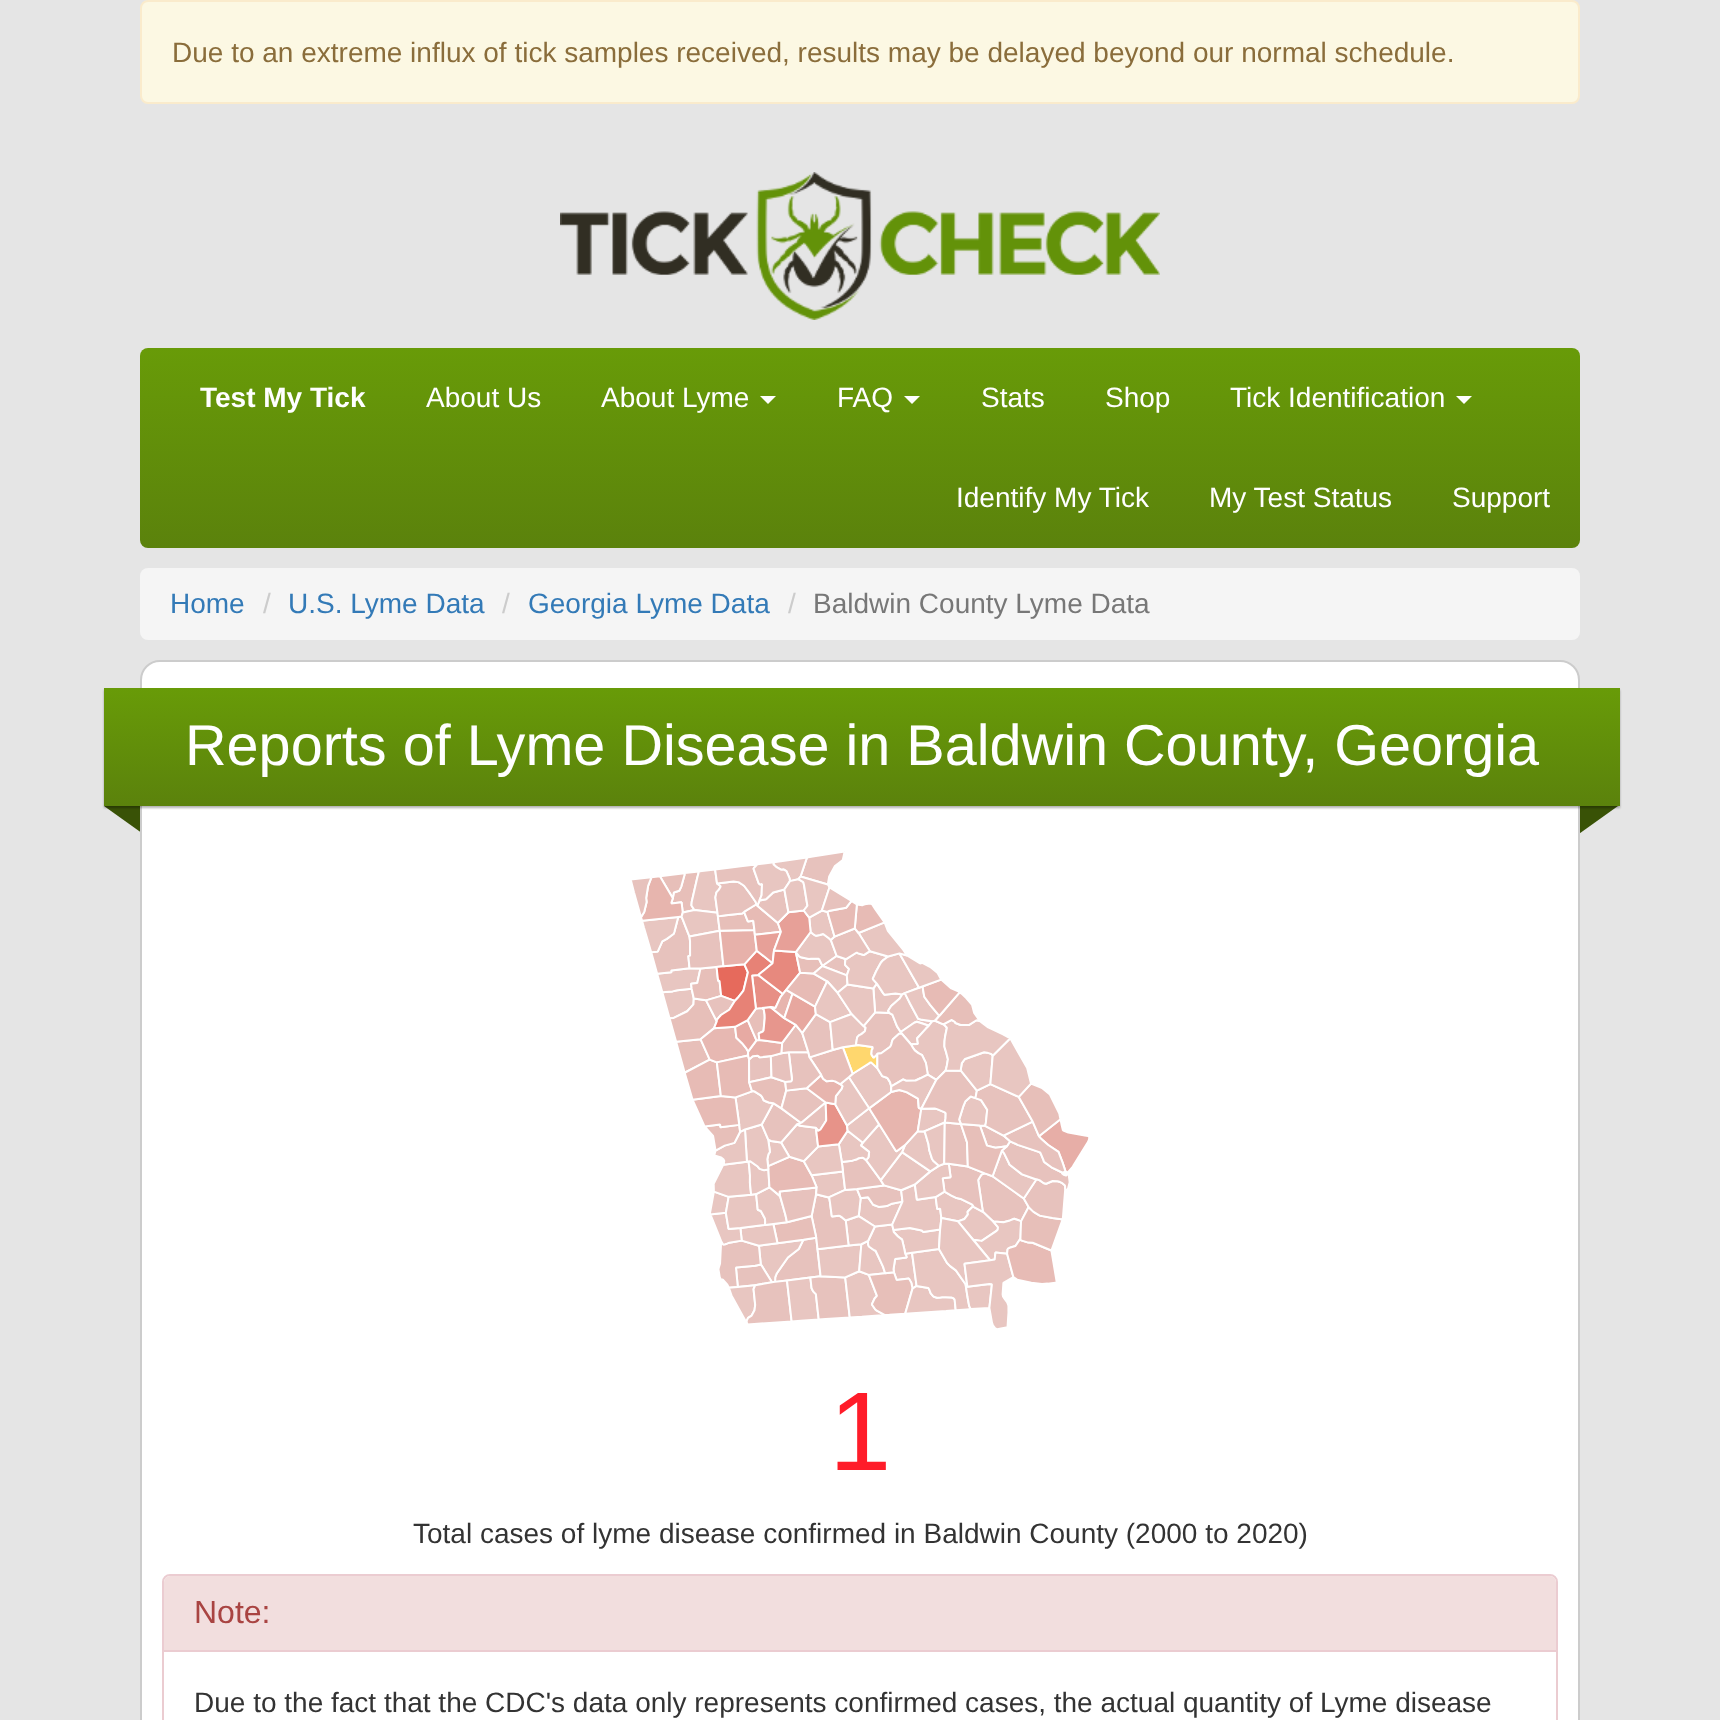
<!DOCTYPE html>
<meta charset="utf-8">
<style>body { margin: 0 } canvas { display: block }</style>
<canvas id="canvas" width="1720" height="1720"></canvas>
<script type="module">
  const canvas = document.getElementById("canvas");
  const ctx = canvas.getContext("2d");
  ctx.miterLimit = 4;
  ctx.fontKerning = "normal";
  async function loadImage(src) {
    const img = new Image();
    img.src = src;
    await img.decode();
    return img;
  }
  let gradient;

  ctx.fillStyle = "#e5e5e5";
  ctx.fillRect(0, 0, 1720, 1720);
  ctx.fillStyle = "#fcf8e3";
  ctx.beginPath();
  ctx.roundRect(141, 1, 1438, 102, 7);
  ctx.fill();
  ctx.strokeStyle = "#faebcc";
  ctx.lineWidth = 2;
  ctx.stroke();
  ctx.font = "28px Liberation Sans";
  ctx.fillStyle = "#8a6d3b";
  ctx.fillText("Due to an extreme influx of tick samples received, results may be delayed beyond our normal schedule.", 172, 62);
  ctx.drawImage(await loadImage("img1.png"), 560, 172, 600, 148);
  gradient = ctx.createLinearGradient(860, 548, 860, 348);
  gradient.addColorStop(0, "#5b820c");
  gradient.addColorStop(1, "#689b08");
  ctx.fillStyle = gradient;
  ctx.beginPath();
  ctx.roundRect(140, 348, 1440, 200, 8);
  ctx.fill();
  ctx.font = "bold 28px Liberation Sans";
  ctx.fillStyle = "#ffffff";
  ctx.fillText("Test My Tick", 200, 407);
  ctx.font = "28px Liberation Sans";
  ctx.fillText("About Us", 426, 407);
  ctx.fillText("About Lyme", 601, 407);
  ctx.beginPath();
  ctx.moveTo(760, 396);
  ctx.lineTo(776, 396);
  ctx.lineTo(768, 404);
  ctx.closePath();
  ctx.fill();
  ctx.fillText("FAQ", 837, 407);
  ctx.beginPath();
  ctx.moveTo(904, 396);
  ctx.lineTo(920, 396);
  ctx.lineTo(912, 404);
  ctx.closePath();
  ctx.fill();
  ctx.fillText("Stats", 981, 407);
  ctx.fillText("Shop", 1105, 407);
  ctx.fillText("Tick Identification", 1230, 407);
  ctx.beginPath();
  ctx.moveTo(1456, 396);
  ctx.lineTo(1472, 396);
  ctx.lineTo(1464, 404);
  ctx.closePath();
  ctx.fill();
  ctx.fillText("Identify My Tick", 956, 507);
  ctx.fillText("My Test Status", 1209, 507);
  ctx.fillText("Support", 1452, 507);
  ctx.fillStyle = "#f5f5f5";
  ctx.beginPath();
  ctx.roundRect(140, 568, 1440, 72, 8);
  ctx.fill();
  ctx.fillStyle = "#337ab7";
  ctx.fillText("Home", 170, 613);
  ctx.fillStyle = "#cccccc";
  ctx.fillText("/", 263, 613);
  ctx.fillStyle = "#337ab7";
  ctx.fillText("U.S. Lyme Data", 288, 613);
  ctx.fillStyle = "#cccccc";
  ctx.fillText("/", 502, 613);
  ctx.fillStyle = "#337ab7";
  ctx.fillText("Georgia Lyme Data", 528, 613);
  ctx.fillStyle = "#cccccc";
  ctx.fillText("/", 788, 613);
  ctx.fillStyle = "#777777";
  ctx.fillText("Baldwin County Lyme Data", 813, 613);
  ctx.fillStyle = "#395206";
  ctx.beginPath();
  ctx.moveTo(104, 806);
  ctx.lineTo(146, 806);
  ctx.lineTo(146, 836);
  ctx.closePath();
  ctx.fill();
  ctx.beginPath();
  ctx.moveTo(1576, 806);
  ctx.lineTo(1618, 806);
  ctx.lineTo(1576, 836);
  ctx.closePath();
  ctx.fill();
  ctx.fillStyle = "#ffffff";
  ctx.beginPath();
  ctx.roundRect(141, 661, 1438, 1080, 19);
  ctx.fill();
  ctx.strokeStyle = "#cccccc";
  ctx.stroke();
  ctx.fillStyle = "rgba(0, 0, 0, 0.3)";
  ctx.filter = "blur(1px)";
  ctx.beginPath();
  ctx.rect(104, 690, 1516, 118);
  ctx.fill();
  ctx.filter = "none";
  gradient = ctx.createLinearGradient(862, 806, 862, 688);
  gradient.addColorStop(0, "#5b820c");
  gradient.addColorStop(1, "#689b08");
  ctx.fillStyle = gradient;
  ctx.fillRect(104, 688, 1516, 118);
  ctx.font = "57.6px Liberation Sans";
  ctx.fillStyle = "#ffffff";
  ctx.fillText("Reports of Lyme Disease in Baldwin County, Georgia", 185, 765);
  ctx.drawImage(await loadImage("img2.png"), 631, 851, 458, 478);
  ctx.font = "112px Liberation Sans";
  ctx.fillStyle = "#ff1c29";
  ctx.fillText("1", 829, 1470);
  ctx.font = "28px Liberation Sans";
  ctx.fillStyle = "#333333";
  ctx.fillText("Total cases of lyme disease confirmed in Baldwin County (2000 to 2020)", 413, 1543);
  ctx.beginPath();
  ctx.roundRect(163, 1575, 1394, 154, 7);
  ctx.strokeStyle = "#ebccd1";
  ctx.stroke();
  ctx.fillStyle = "#f2dede";
  ctx.beginPath();
  ctx.roundRect(164, 1576, 1392, 76, [6, 6, 0, 0]);
  ctx.fill();
  ctx.fillStyle = "#ebccd1";
  ctx.fillRect(164, 1650, 1392, 2);
  ctx.font = "32px Liberation Sans";
  ctx.fillStyle = "#a94442";
  ctx.fillText("Note:", 194, 1623);
  ctx.font = "28px Liberation Sans";
  ctx.fillStyle = "#333333";
  ctx.fillText("Due to the fact that the CDC's data only represents confirmed cases, the actual quantity of Lyme disease", 194, 1712);
</script>
